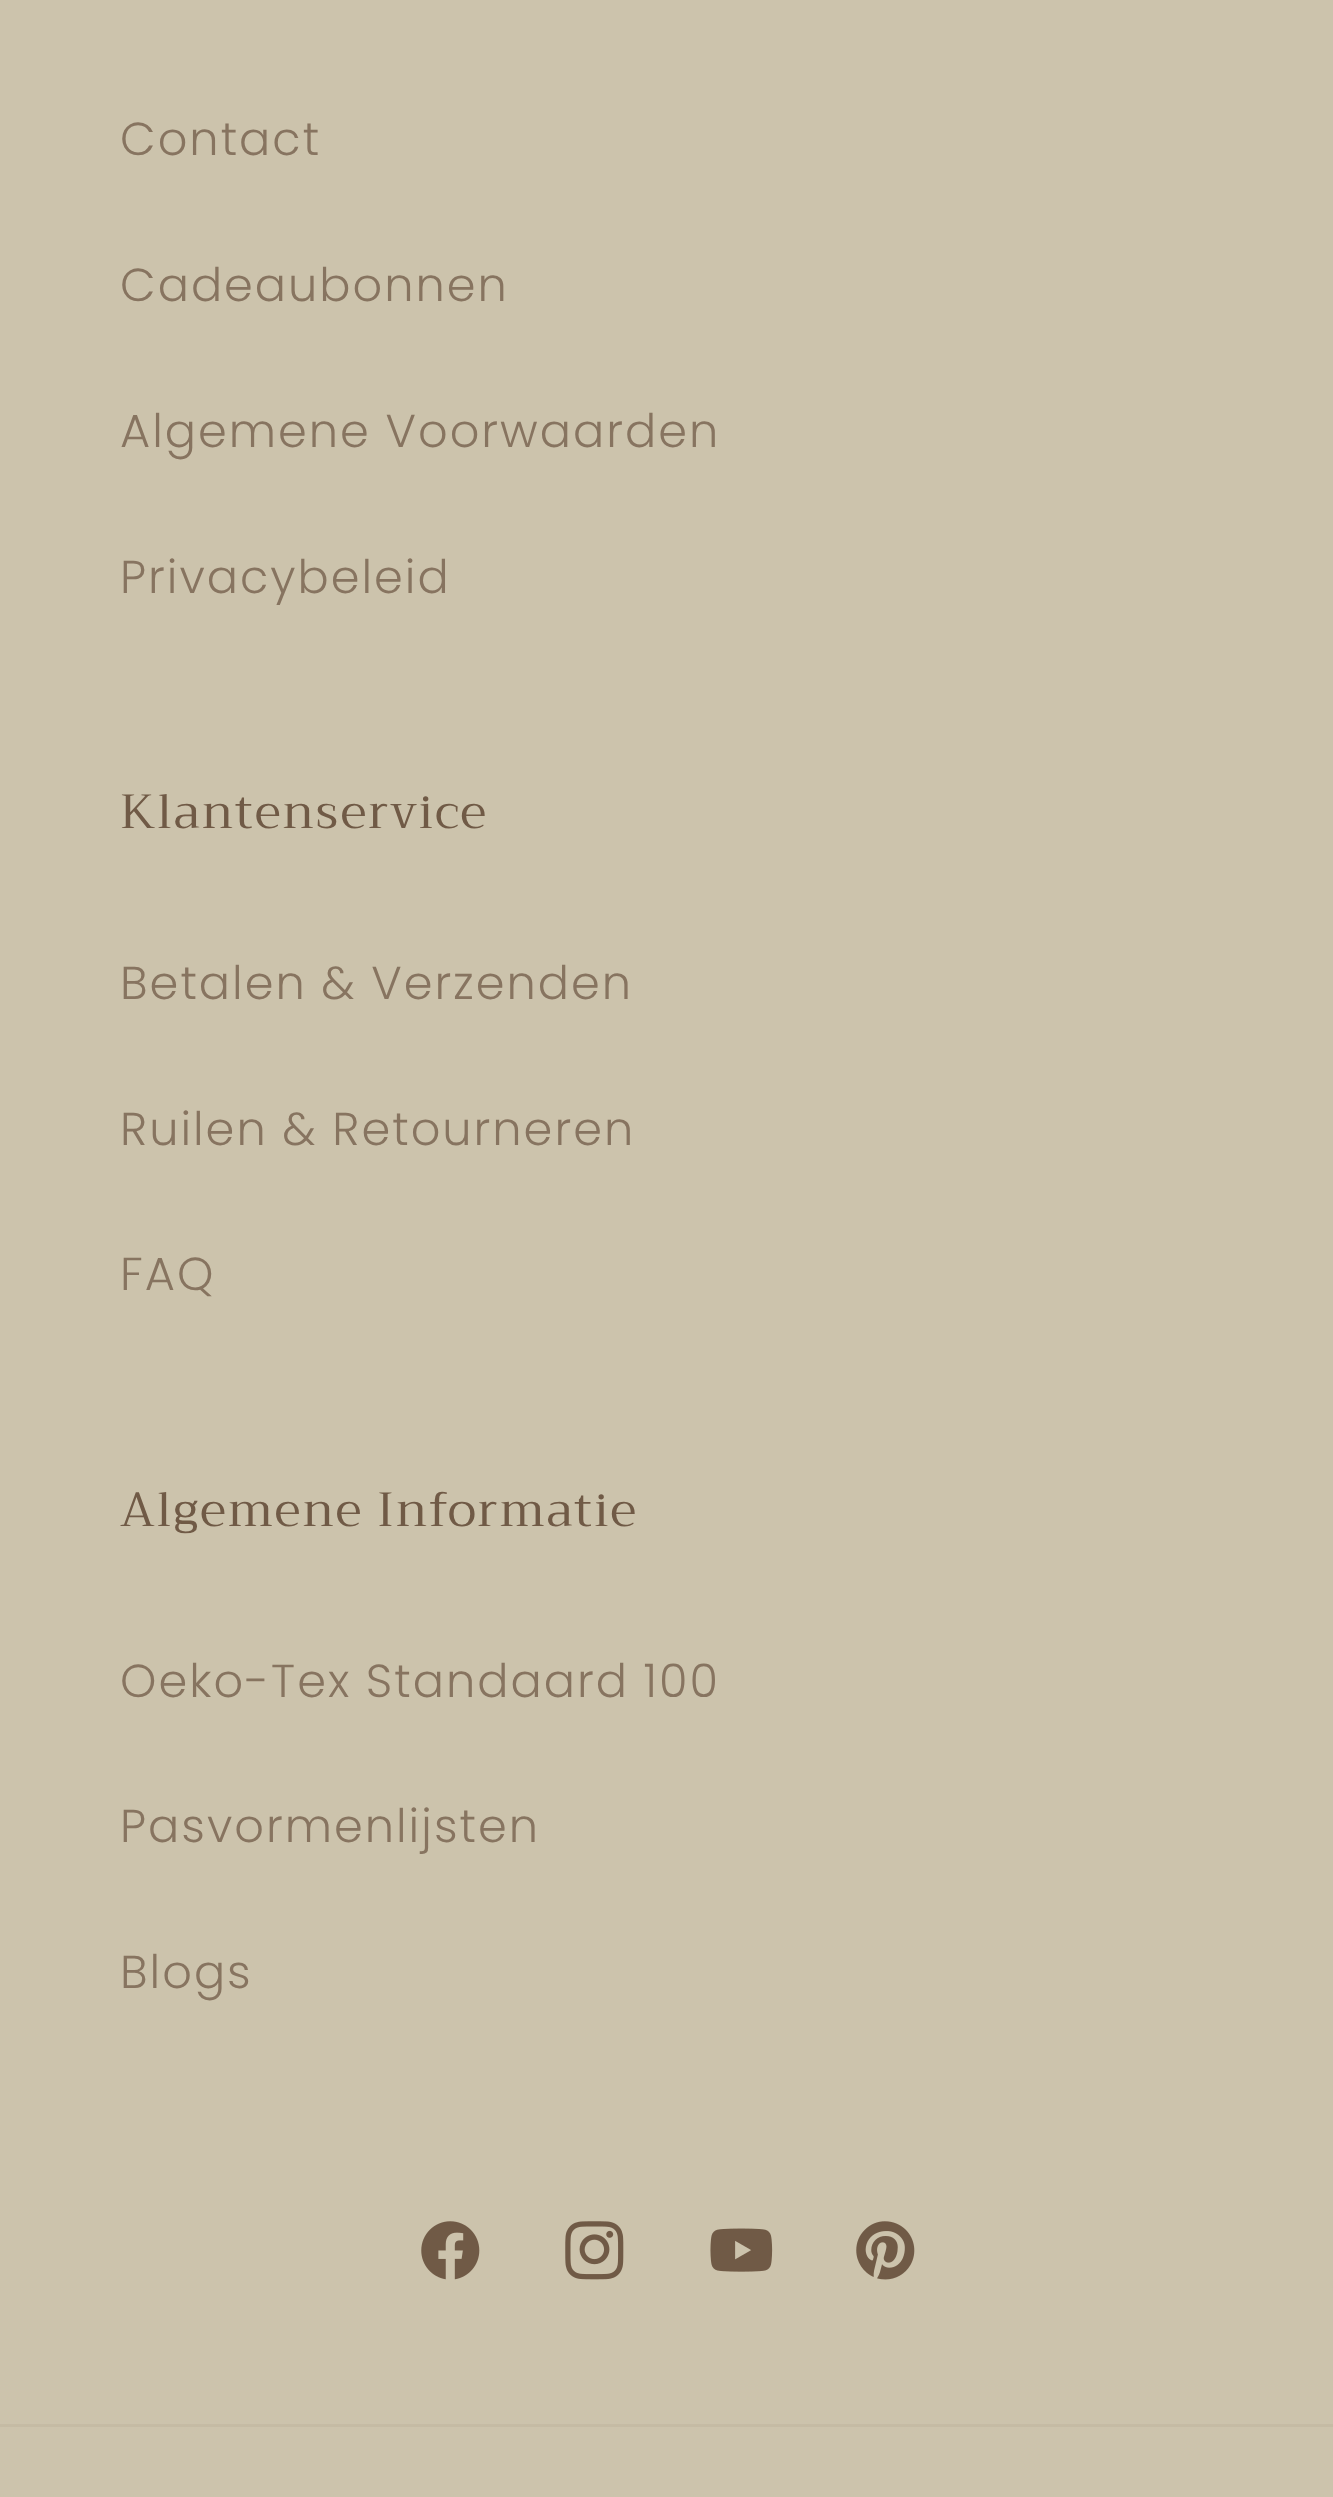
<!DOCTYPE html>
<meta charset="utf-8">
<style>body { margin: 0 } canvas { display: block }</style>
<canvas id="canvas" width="1333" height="2497"></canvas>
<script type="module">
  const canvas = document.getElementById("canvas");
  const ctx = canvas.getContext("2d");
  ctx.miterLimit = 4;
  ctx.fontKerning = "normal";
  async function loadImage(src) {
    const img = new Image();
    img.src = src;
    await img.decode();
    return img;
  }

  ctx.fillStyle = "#ccc3ac";
  ctx.fillRect(0, 0, 1333, 2497);
  ctx.letterSpacing = "2px";
  ctx.font = "300 46.25px Poppins";
  ctx.fillStyle = "#877460";
  ctx.fillText("Contact", 120, 155);
  ctx.fillText("Cadeaubonnen", 120, 301);
  ctx.fillText("Algemene Voorwaarden", 120, 447);
  ctx.fillText("Privacybeleid", 120, 593);
  ctx.letterSpacing = "1.75px";
  ctx.font = "48px Trirong";
  ctx.fillStyle = "#705a46";
  ctx.fillText("Klantenservice", 120, 828);
  ctx.letterSpacing = "2px";
  ctx.font = "300 46.25px Poppins";
  ctx.fillStyle = "#877460";
  ctx.fillText("Betalen & Verzenden", 120, 999);
  ctx.fillText("Ruilen & Retourneren", 120, 1145);
  ctx.fillText("FAQ", 120, 1290);
  ctx.letterSpacing = "1.75px";
  ctx.font = "48px Trirong";
  ctx.fillStyle = "#705a46";
  ctx.fillText("Algemene Informatie", 120, 1526);
  ctx.letterSpacing = "2px";
  ctx.font = "300 46.25px Poppins";
  ctx.fillStyle = "#877460";
  ctx.fillText("Oeko-Tex Standaard 100", 120, 1697);
  ctx.fillText("Pasvormenlijsten", 120, 1842);
  ctx.fillText("Blogs", 120, 1988);
  ctx.drawImage(await loadImage("img1.png"), 421, 2221, 59, 59);
  ctx.drawImage(await loadImage("img2.png"), 565, 2221, 59, 59);
  ctx.drawImage(await loadImage("img3.png"), 710, 2228, 63, 44);
  ctx.drawImage(await loadImage("img4.png"), 856, 2221, 59, 59);
  ctx.fillStyle = "#c5bba4";
  ctx.fillRect(0, 2424, 1333, 3);
</script>
